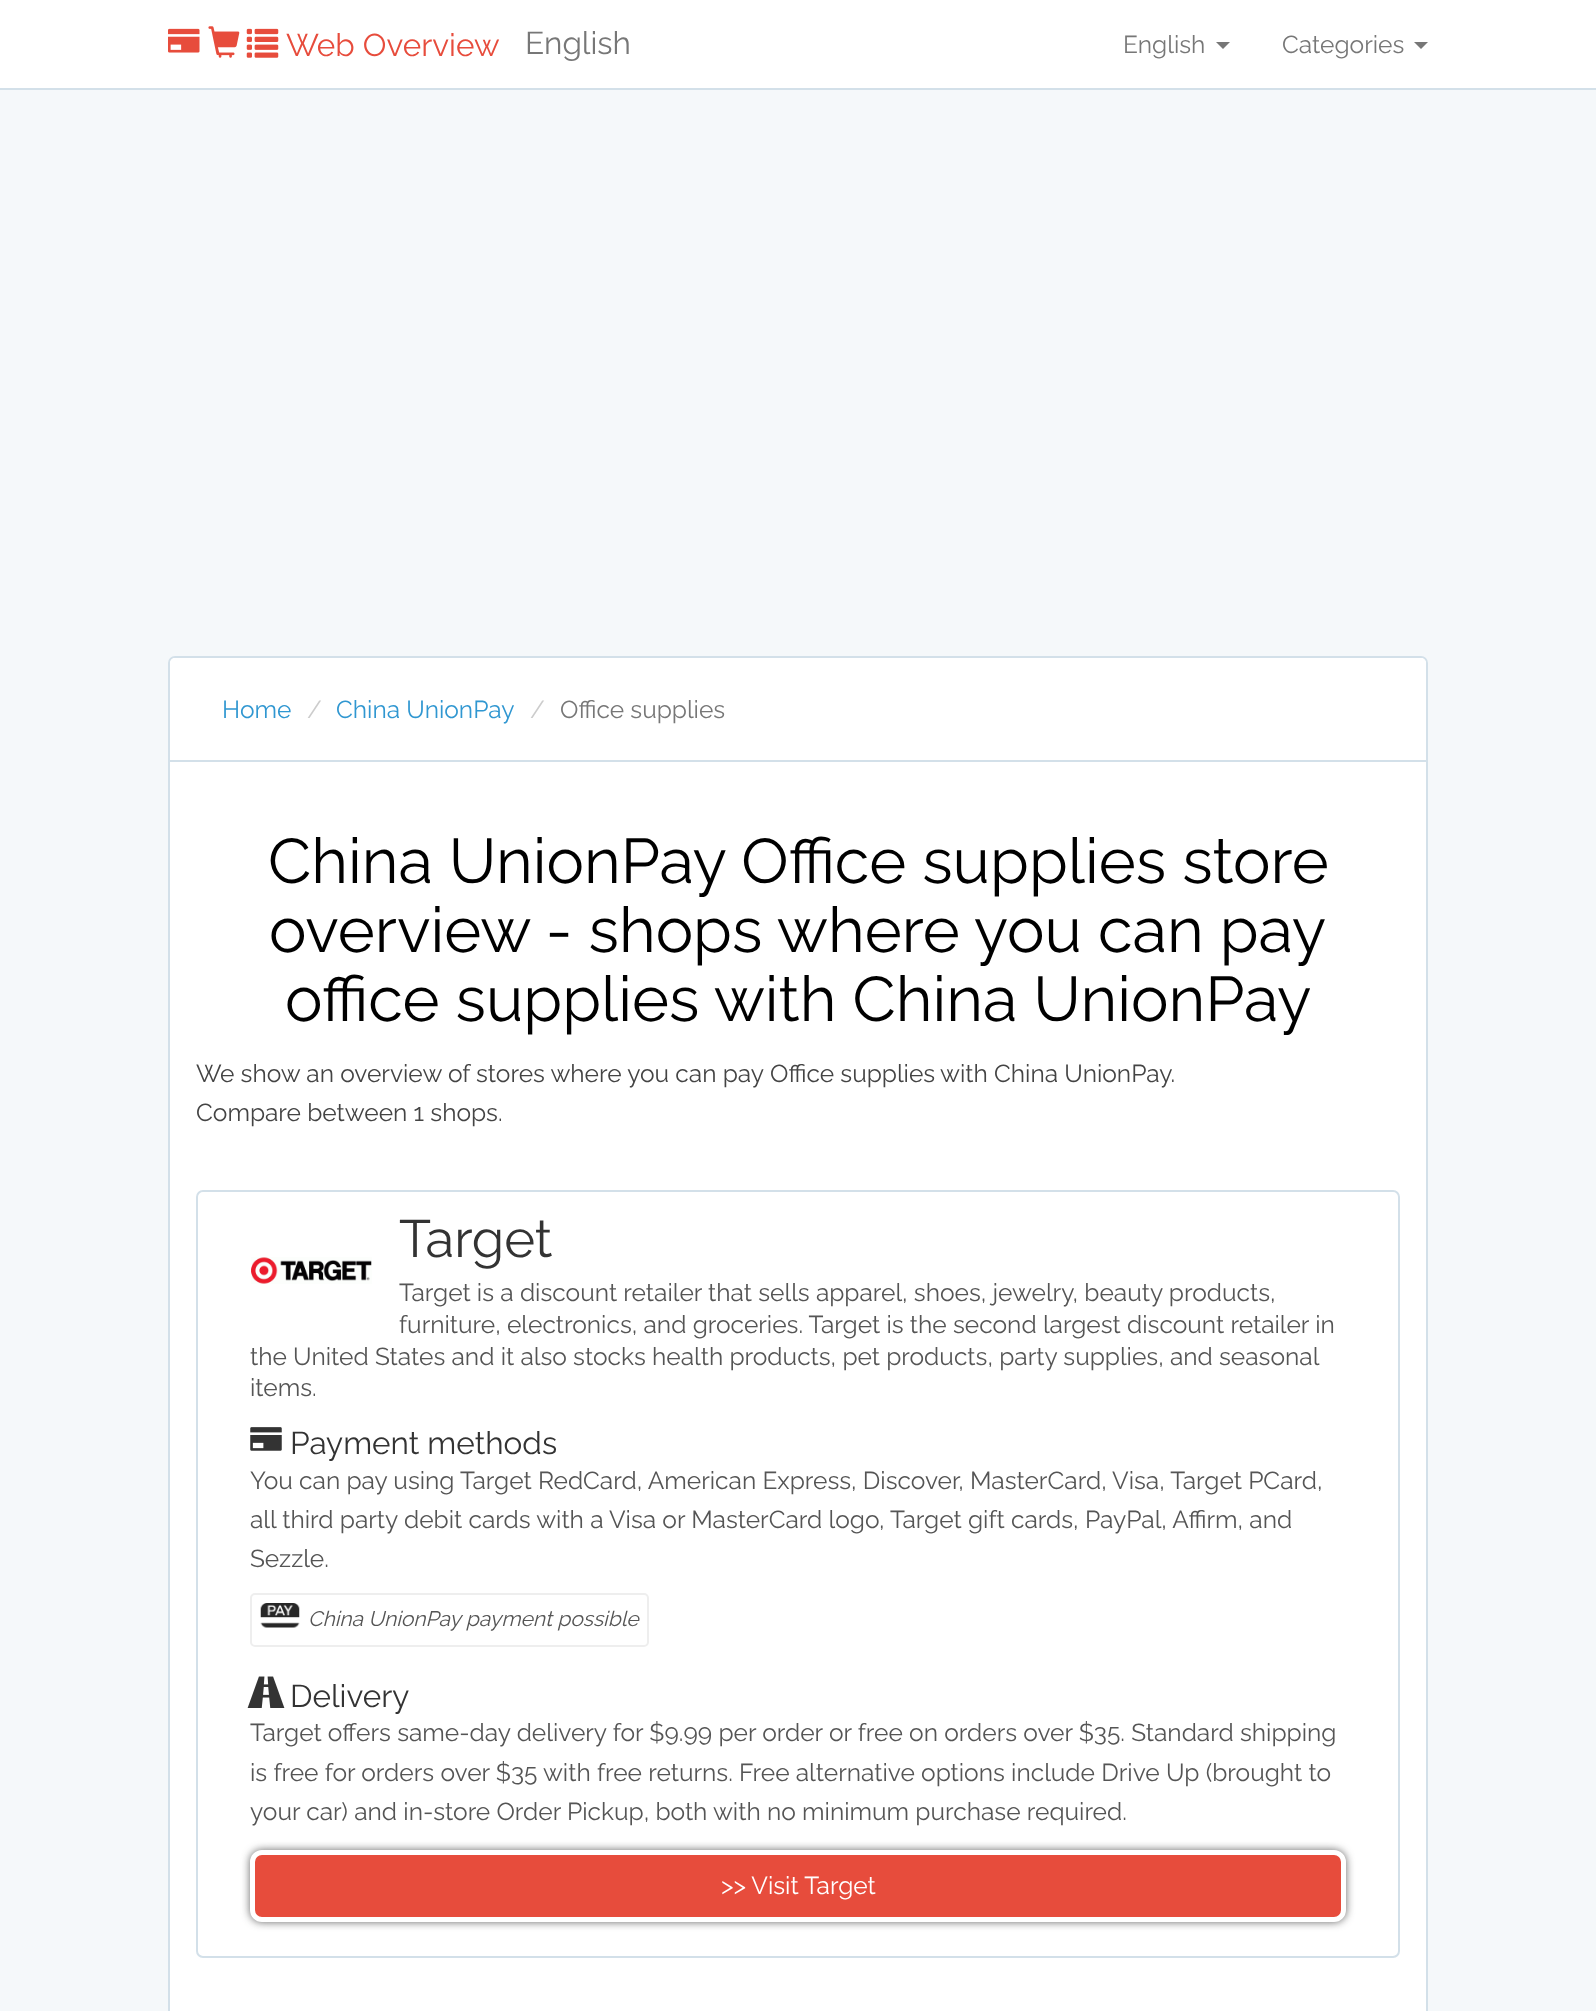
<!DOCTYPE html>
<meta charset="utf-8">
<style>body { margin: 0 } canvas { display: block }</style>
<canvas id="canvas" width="1596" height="2011"></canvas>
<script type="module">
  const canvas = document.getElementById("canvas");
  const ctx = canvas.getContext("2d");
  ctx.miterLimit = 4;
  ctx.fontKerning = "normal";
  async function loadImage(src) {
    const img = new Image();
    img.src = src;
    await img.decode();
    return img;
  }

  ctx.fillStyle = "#f5f8fa";
  ctx.fillRect(0, 0, 1596, 2011);
  ctx.fillStyle = "#ffffff";
  ctx.fillRect(0, 0, 1596, 88);
  ctx.fillStyle = "#d3e0e9";
  ctx.fillRect(0, 88, 1596, 2);
  ctx.drawImage(await loadImage("img1.png"), 168, 28, 32, 25);
  ctx.drawImage(await loadImage("img2.png"), 208, 26, 32, 32);
  ctx.drawImage(await loadImage("img3.png"), 246, 28, 33, 30);
  ctx.font = "31.5px Raleway";
  ctx.fillStyle = "#e74c3c";
  ctx.fillText("Web Overview", 286, 56);
  ctx.fillStyle = "#777777";
  ctx.fillText("English", 525, 54);
  ctx.font = "24.5px Raleway";
  ctx.fillText("English", 1123, 53);
  ctx.beginPath();
  ctx.moveTo(1216, 42);
  ctx.lineTo(1230, 42);
  ctx.lineTo(1223, 49);
  ctx.closePath();
  ctx.fill();
  ctx.fillText("Categories", 1282, 53);
  ctx.beginPath();
  ctx.moveTo(1414, 42);
  ctx.lineTo(1428, 42);
  ctx.lineTo(1421, 49);
  ctx.closePath();
  ctx.fill();
  ctx.fillStyle = "#ffffff";
  ctx.beginPath();
  ctx.roundRect(169, 657, 1258, 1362, 6);
  ctx.fill();
  ctx.strokeStyle = "#d3e0e9";
  ctx.lineWidth = 2;
  ctx.stroke();
  ctx.beginPath();
  ctx.roundRect(170, 658, 1256, 103, [5, 5, 0, 0]);
  ctx.fill();
  ctx.fillStyle = "#d3e0e9";
  ctx.fillRect(170, 760, 1256, 2);
  ctx.fillStyle = "#3097d1";
  ctx.fillText("Home", 222, 718);
  ctx.fillStyle = "#cccccc";
  ctx.fillText("/", 307, 718);
  ctx.fillStyle = "#3097d1";
  ctx.fillText("China UnionPay", 336, 718);
  ctx.fillStyle = "#cccccc";
  ctx.fillText("/", 530, 718);
  ctx.fillStyle = "#777777";
  ctx.fillText("Office supplies", 560, 718);
  ctx.font = "63px Raleway";
  ctx.fillStyle = "#000000";
  ctx.fillText("China UnionPay Office supplies store", 268, 883);
  ctx.fillText("overview - shops where you can pay", 269, 952);
  ctx.fillText("office supplies with China UnionPay", 285, 1021);
  ctx.font = "24.5px Raleway";
  ctx.fillStyle = "#444444";
  ctx.fillText("We show an overview of stores where you can pay", 196, 1082);
  ctx.fillText("Office supplies", 770, 1082);
  ctx.fillText("with China UnionPay.", 940, 1082);
  ctx.fillText("Compare between 1 shops.", 196, 1121);
  ctx.beginPath();
  ctx.roundRect(197, 1191, 1202, 766, 6);
  ctx.stroke();
  ctx.font = "52.5px Raleway";
  ctx.fillStyle = "#333333";
  ctx.fillText("Target", 399, 1257);
  ctx.font = "24.5px Raleway";
  ctx.fillStyle = "#555555";
  ctx.fillText("Target is a discount retailer that sells apparel, shoes, jewelry, beauty products,", 399, 1301);
  ctx.fillText("furniture, electronics, and groceries. Target is the second largest discount retailer in", 399, 1333);
  ctx.fillText("the United States and it also stocks health products, pet products, party supplies, and seasonal", 250, 1365);
  ctx.fillText("items.", 250, 1396);
  ctx.drawImage(await loadImage("img4.png"), 251, 1257, 121, 27);
  ctx.drawImage(await loadImage("img5.png"), 250, 1427, 32, 24);
  ctx.font = "31.5px Raleway";
  ctx.fillStyle = "#333333";
  ctx.fillText("Payment methods", 290, 1454);
  ctx.font = "24.5px Raleway";
  ctx.fillStyle = "#555555";
  ctx.fillText("You can pay using Target RedCard, American Express, Discover, MasterCard, Visa, Target PCard,", 250, 1489);
  ctx.fillText("all third party debit cards with a Visa or MasterCard logo, Target gift cards, PayPal, Affirm, and", 250, 1528);
  ctx.fillText("Sezzle.", 250, 1567);
  ctx.beginPath();
  ctx.roundRect(251, 1594, 397, 52, 4);
  ctx.strokeStyle = "#eeeeee";
  ctx.stroke();
  ctx.drawImage(await loadImage("img6.png"), 260, 1603, 40, 25);
  ctx.font = "italic 21px Raleway";
  ctx.fillText("China UnionPay payment possible", 308, 1626);
  ctx.drawImage(await loadImage("img7.png"), 247, 1676, 38, 32);
  ctx.font = "31.5px Raleway";
  ctx.fillStyle = "#333333";
  ctx.fillText("Delivery", 290, 1707);
  ctx.font = "24.5px Raleway";
  ctx.fillStyle = "#555555";
  ctx.fillText("Target offers same-day delivery for $9.99 per order or free on orders over $35. Standard shipping", 250, 1741);
  ctx.fillText("is free for orders over $35 with free returns. Free alternative options include Drive Up (brought to", 250, 1781);
  ctx.fillText("your car) and in-store Order Pickup, both with no minimum purchase required.", 250, 1820);
  ctx.fillStyle = "rgba(50, 50, 50, 0.75)";
  ctx.filter = "blur(4.5px)";
  ctx.beginPath();
  ctx.roundRect(250, 1850, 1096, 72, 12);
  ctx.fill();
  ctx.filter = "none";
  ctx.fillStyle = "#e74c3c";
  ctx.beginPath();
  ctx.roundRect(252.5, 1852.5, 1091, 67, 9.5);
  ctx.fill();
  ctx.strokeStyle = "#ffffff";
  ctx.lineWidth = 5;
  ctx.stroke();
  ctx.fillStyle = "#ffffff";
  ctx.fillText(">> Visit Target", 721, 1894);
</script>
